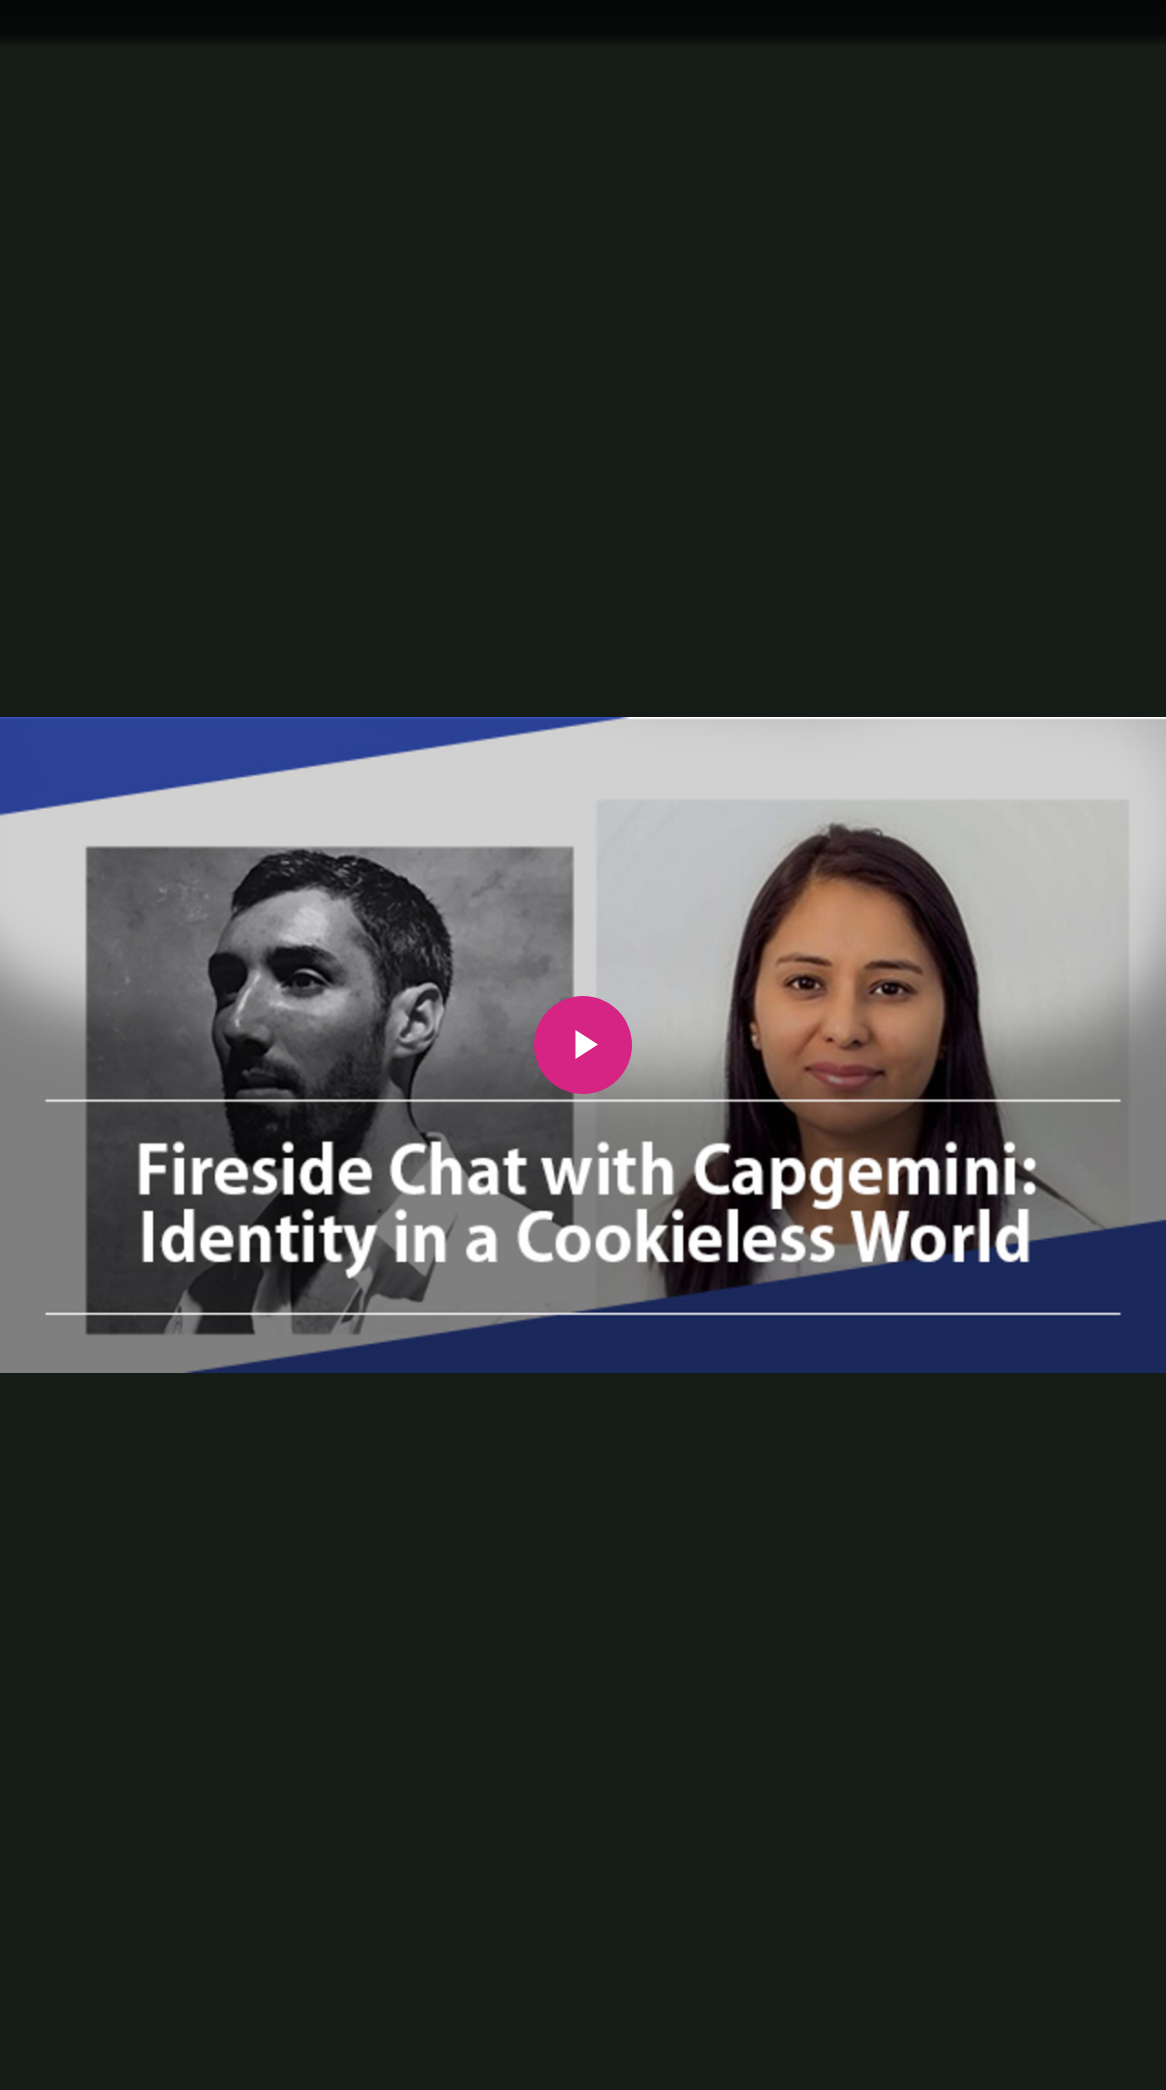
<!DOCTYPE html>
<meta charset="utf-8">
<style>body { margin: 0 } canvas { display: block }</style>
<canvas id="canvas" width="1166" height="2090"></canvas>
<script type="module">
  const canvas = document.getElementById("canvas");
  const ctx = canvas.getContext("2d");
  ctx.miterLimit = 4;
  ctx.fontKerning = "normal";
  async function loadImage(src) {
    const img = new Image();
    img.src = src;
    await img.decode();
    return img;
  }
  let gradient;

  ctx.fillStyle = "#151b17";
  ctx.fillRect(0, 0, 1166, 2090);
  gradient = ctx.createLinearGradient(583, 0, 583, 47);
  gradient.addColorStop(0, "#040505");
  gradient.addColorStop(0.3, "#060807");
  gradient.addColorStop(0.7, "#060807");
  gradient.addColorStop(1, "#151b17");
  ctx.fillStyle = gradient;
  ctx.fillRect(0, 0, 1166, 45);
  ctx.drawImage(await loadImage("img1.png"), 0, 717, 1166, 656);
  ctx.fillStyle = "#d52484";
  ctx.beginPath();
  ctx.arc(583, 1045, 49, 0, Math.PI * 2);
  ctx.fill();
  ctx.fillStyle = "#ffffff";
  ctx.beginPath();
  ctx.moveTo(575.5, 1030);
  ctx.lineTo(575.5, 1059);
  ctx.lineTo(598, 1044.5);
  ctx.closePath();
  ctx.fill();
</script>
